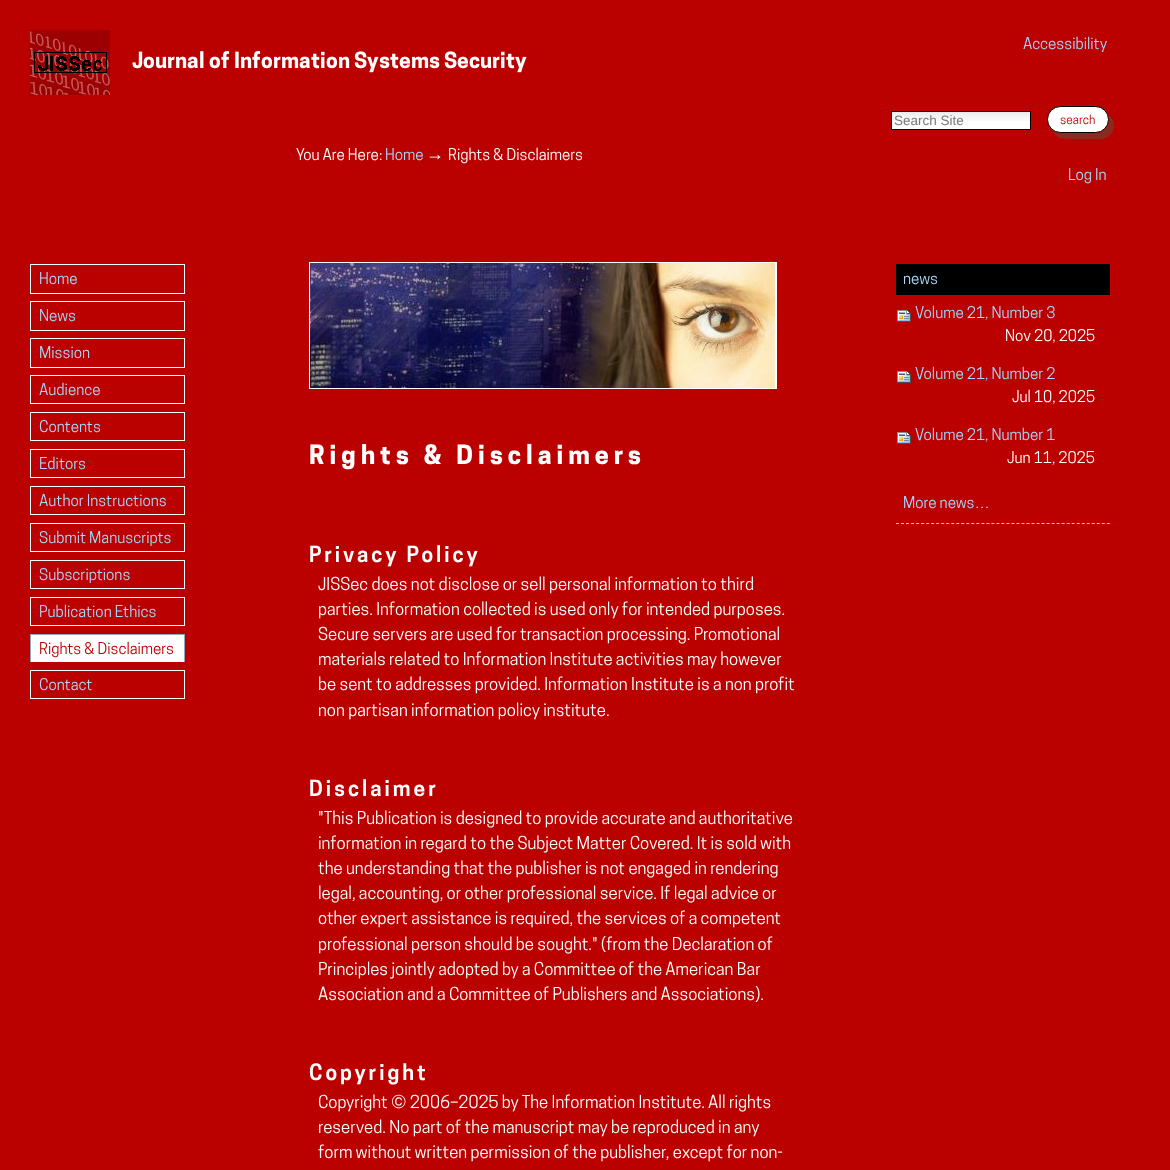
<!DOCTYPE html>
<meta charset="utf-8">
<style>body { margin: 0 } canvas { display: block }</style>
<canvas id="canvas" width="1170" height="1170"></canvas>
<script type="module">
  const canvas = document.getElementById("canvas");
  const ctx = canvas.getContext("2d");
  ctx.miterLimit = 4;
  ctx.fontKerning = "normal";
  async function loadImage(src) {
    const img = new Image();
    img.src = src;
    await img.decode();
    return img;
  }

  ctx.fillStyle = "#bb0000";
  ctx.fillRect(0, 0, 1170, 1170);
  ctx.drawImage(await loadImage("img1.png"), 30, 30, 497, 65);
  ctx.font = "15.25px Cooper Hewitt";
  ctx.fillStyle = "#a8d9fd";
  ctx.fillText("Accessibility", 1023, 49);
  ctx.fillStyle = "#ffffff";
  ctx.fillRect(892, 121, 138, 8);
  ctx.drawImage(await loadImage("img2.png"), 892, 112, 138, 9);
  ctx.strokeStyle = "#000000";
  ctx.strokeRect(891.5, 111.5, 139, 18);
  ctx.font = "13.5px Liberation Sans";
  ctx.fillStyle = "#76797c";
  ctx.fillText("Search Site", 894, 125);
  ctx.fillStyle = "#8a2a21";
  ctx.beginPath();
  ctx.moveTo(1053, 131);
  ctx.bezierCurveTo(1055, 136, 1060, 139, 1066, 139);
  ctx.lineTo(1100, 139);
  ctx.bezierCurveTo(1108, 139, 1114, 133, 1114, 126);
  ctx.bezierCurveTo(1114, 121, 1112, 117, 1108, 114);
  ctx.bezierCurveTo(1109, 116, 1109, 118, 1109, 120);
  ctx.bezierCurveTo(1109, 127, 1103, 133, 1096, 133);
  ctx.lineTo(1060, 133);
  ctx.bezierCurveTo(1058, 133, 1055, 132, 1053, 131);
  ctx.closePath();
  ctx.fill();
  ctx.fillStyle = "#ffffff";
  ctx.beginPath();
  ctx.roundRect(1047.5, 106.5, 61, 26, 13);
  ctx.fill();
  ctx.stroke();
  ctx.font = "12px Cooper Hewitt";
  ctx.fillStyle = "#bb0000";
  ctx.fillText("search", 1060, 124);
  ctx.font = "15.25px Cooper Hewitt";
  ctx.fillStyle = "#ffffff";
  ctx.fillText("You Are Here:", 296, 160);
  ctx.fillStyle = "#a8d9fd";
  ctx.fillText("Home", 385, 160);
  ctx.font = "18px Liberation Serif";
  ctx.fillStyle = "#ffffff";
  ctx.fillText("→", 426, 160);
  ctx.font = "15.25px Cooper Hewitt";
  ctx.fillText("Rights & Disclaimers", 448, 160);
  ctx.fillStyle = "#a8d9fd";
  ctx.fillText("Log In", 1068, 180);
  ctx.strokeStyle = "#ffffff";
  ctx.strokeRect(30.5, 264.5, 154, 29);
  ctx.fillText("Home", 39, 284);
  ctx.strokeRect(30.5, 301.5, 154, 29);
  ctx.fillText("News", 39, 321);
  ctx.strokeRect(30.5, 338.5, 154, 29);
  ctx.fillText("Mission", 39, 358);
  ctx.strokeRect(30.5, 375.5, 154, 28);
  ctx.fillText("Audience", 39, 395);
  ctx.strokeRect(30.5, 412.5, 154, 28);
  ctx.fillText("Contents", 39, 432);
  ctx.strokeRect(30.5, 449.5, 154, 28);
  ctx.fillText("Editors", 39, 469);
  ctx.strokeRect(30.5, 486.5, 154, 28);
  ctx.fillText("Author Instructions", 39, 506);
  ctx.strokeRect(30.5, 523.5, 154, 28);
  ctx.fillText("Submit Manuscripts", 39, 543);
  ctx.strokeRect(30.5, 560.5, 154, 28);
  ctx.fillText("Subscriptions", 39, 580);
  ctx.strokeRect(30.5, 597.5, 154, 28);
  ctx.fillText("Publication Ethics", 39, 617);
  ctx.fillStyle = "#ffffff";
  ctx.fillRect(31, 635, 153, 27);
  ctx.fillStyle = "#8cacbb";
  ctx.fillRect(30, 634, 155, 1);
  ctx.fillRect(184, 634, 1, 28);
  ctx.fillRect(30, 634, 1, 28);
  ctx.fillStyle = "#bb0000";
  ctx.fillText("Rights & Disclaimers", 39, 654);
  ctx.strokeRect(30.5, 670.5, 154, 28);
  ctx.fillStyle = "#a8d9fd";
  ctx.fillText("Contact", 39, 690);
  ctx.fillStyle = "#000000";
  ctx.fillRect(896, 264, 214, 31);
  ctx.fillStyle = "#a8d9fd";
  ctx.fillText("news", 903, 284);
  ctx.drawImage(await loadImage("img3.png"), 897, 310, 14, 12);
  ctx.fillText("Volume 21, Number 3", 915, 318);
  ctx.fillStyle = "#ffffff";
  ctx.fillText("Nov 20, 2025", 1005, 341);
  ctx.drawImage(await loadImage("img3.png"), 897, 371, 14, 12);
  ctx.fillStyle = "#a8d9fd";
  ctx.fillText("Volume 21, Number 2", 915, 379);
  ctx.fillStyle = "#ffffff";
  ctx.fillText("Jul 10, 2025", 1012, 402);
  ctx.drawImage(await loadImage("img3.png"), 897, 432, 14, 12);
  ctx.fillStyle = "#a8d9fd";
  ctx.fillText("Volume 21, Number 1", 915, 440);
  ctx.fillStyle = "#ffffff";
  ctx.fillText("Jun 11, 2025", 1007, 463);
  ctx.beginPath();
  ctx.moveTo(896, 523.5);
  ctx.lineTo(1110, 523.5);
  ctx.strokeStyle = "#c9c4c0";
  ctx.setLineDash([3, 2.02]);
  ctx.stroke();
  ctx.fillStyle = "#a8d9fd";
  ctx.fillText("More news…", 903, 508);
  ctx.strokeStyle = "#ffffff";
  ctx.setLineDash([]);
  ctx.strokeRect(309.5, 262.5, 467, 126);
  ctx.drawImage(await loadImage("img4.png"), 310, 263, 466, 125);
  ctx.letterSpacing = "5px";
  ctx.font = "bold 25.1px Cooper Hewitt";
  ctx.fillStyle = "#ffffff";
  ctx.fillText("Rights & Disclaimers", 309, 464);
  ctx.letterSpacing = "3px";
  ctx.font = "600 21px Cooper Hewitt";
  ctx.fillText("Privacy Policy", 309, 562);
  ctx.letterSpacing = "0px";
  ctx.font = "16.75px Cooper Hewitt";
  ctx.fillText("JISSec does not disclose or sell personal information to third", 318, 590);
  ctx.fillText("parties. Information collected is used only for intended purposes.", 318, 615);
  ctx.fillText("Secure servers are used for transaction processing. Promotional", 318, 640);
  ctx.fillText("materials related to Information Institute activities may however", 318, 665);
  ctx.fillText("be sent to addresses provided. Information Institute is a non profit", 318, 690);
  ctx.fillText("non partisan information policy institute.", 318, 716);
  ctx.letterSpacing = "3px";
  ctx.font = "600 21px Cooper Hewitt";
  ctx.fillText("Disclaimer", 309, 796);
  ctx.letterSpacing = "0px";
  ctx.font = "16.75px Cooper Hewitt";
  ctx.fillText("\"This Publication is designed to provide accurate and authoritative", 318, 824);
  ctx.fillText("information in regard to the Subject Matter Covered. It is sold with", 318, 849);
  ctx.fillText("the understanding that the publisher is not engaged in rendering", 318, 874);
  ctx.fillText("legal, accounting, or other professional service. If legal advice or", 318, 899);
  ctx.fillText("other expert assistance is required, the services of a competent", 318, 924);
  ctx.fillText("professional person should be sought.\" (from the Declaration of", 318, 950);
  ctx.fillText("Principles jointly adopted by a Committee of the American Bar", 318, 975);
  ctx.fillText("Association and a Committee of Publishers and Associations).", 318, 1000);
  ctx.letterSpacing = "3px";
  ctx.font = "600 21px Cooper Hewitt";
  ctx.fillText("Copyright", 309, 1080);
  ctx.letterSpacing = "0px";
  ctx.font = "16.75px Cooper Hewitt";
  ctx.fillText("Copyright © 2006–2025 by The Information Institute. All rights", 318, 1108);
  ctx.fillText("reserved. No part of the manuscript may be reproduced in any", 318, 1133);
  ctx.fillText("form without written permission of the publisher, except for non-", 318, 1158);
</script>
